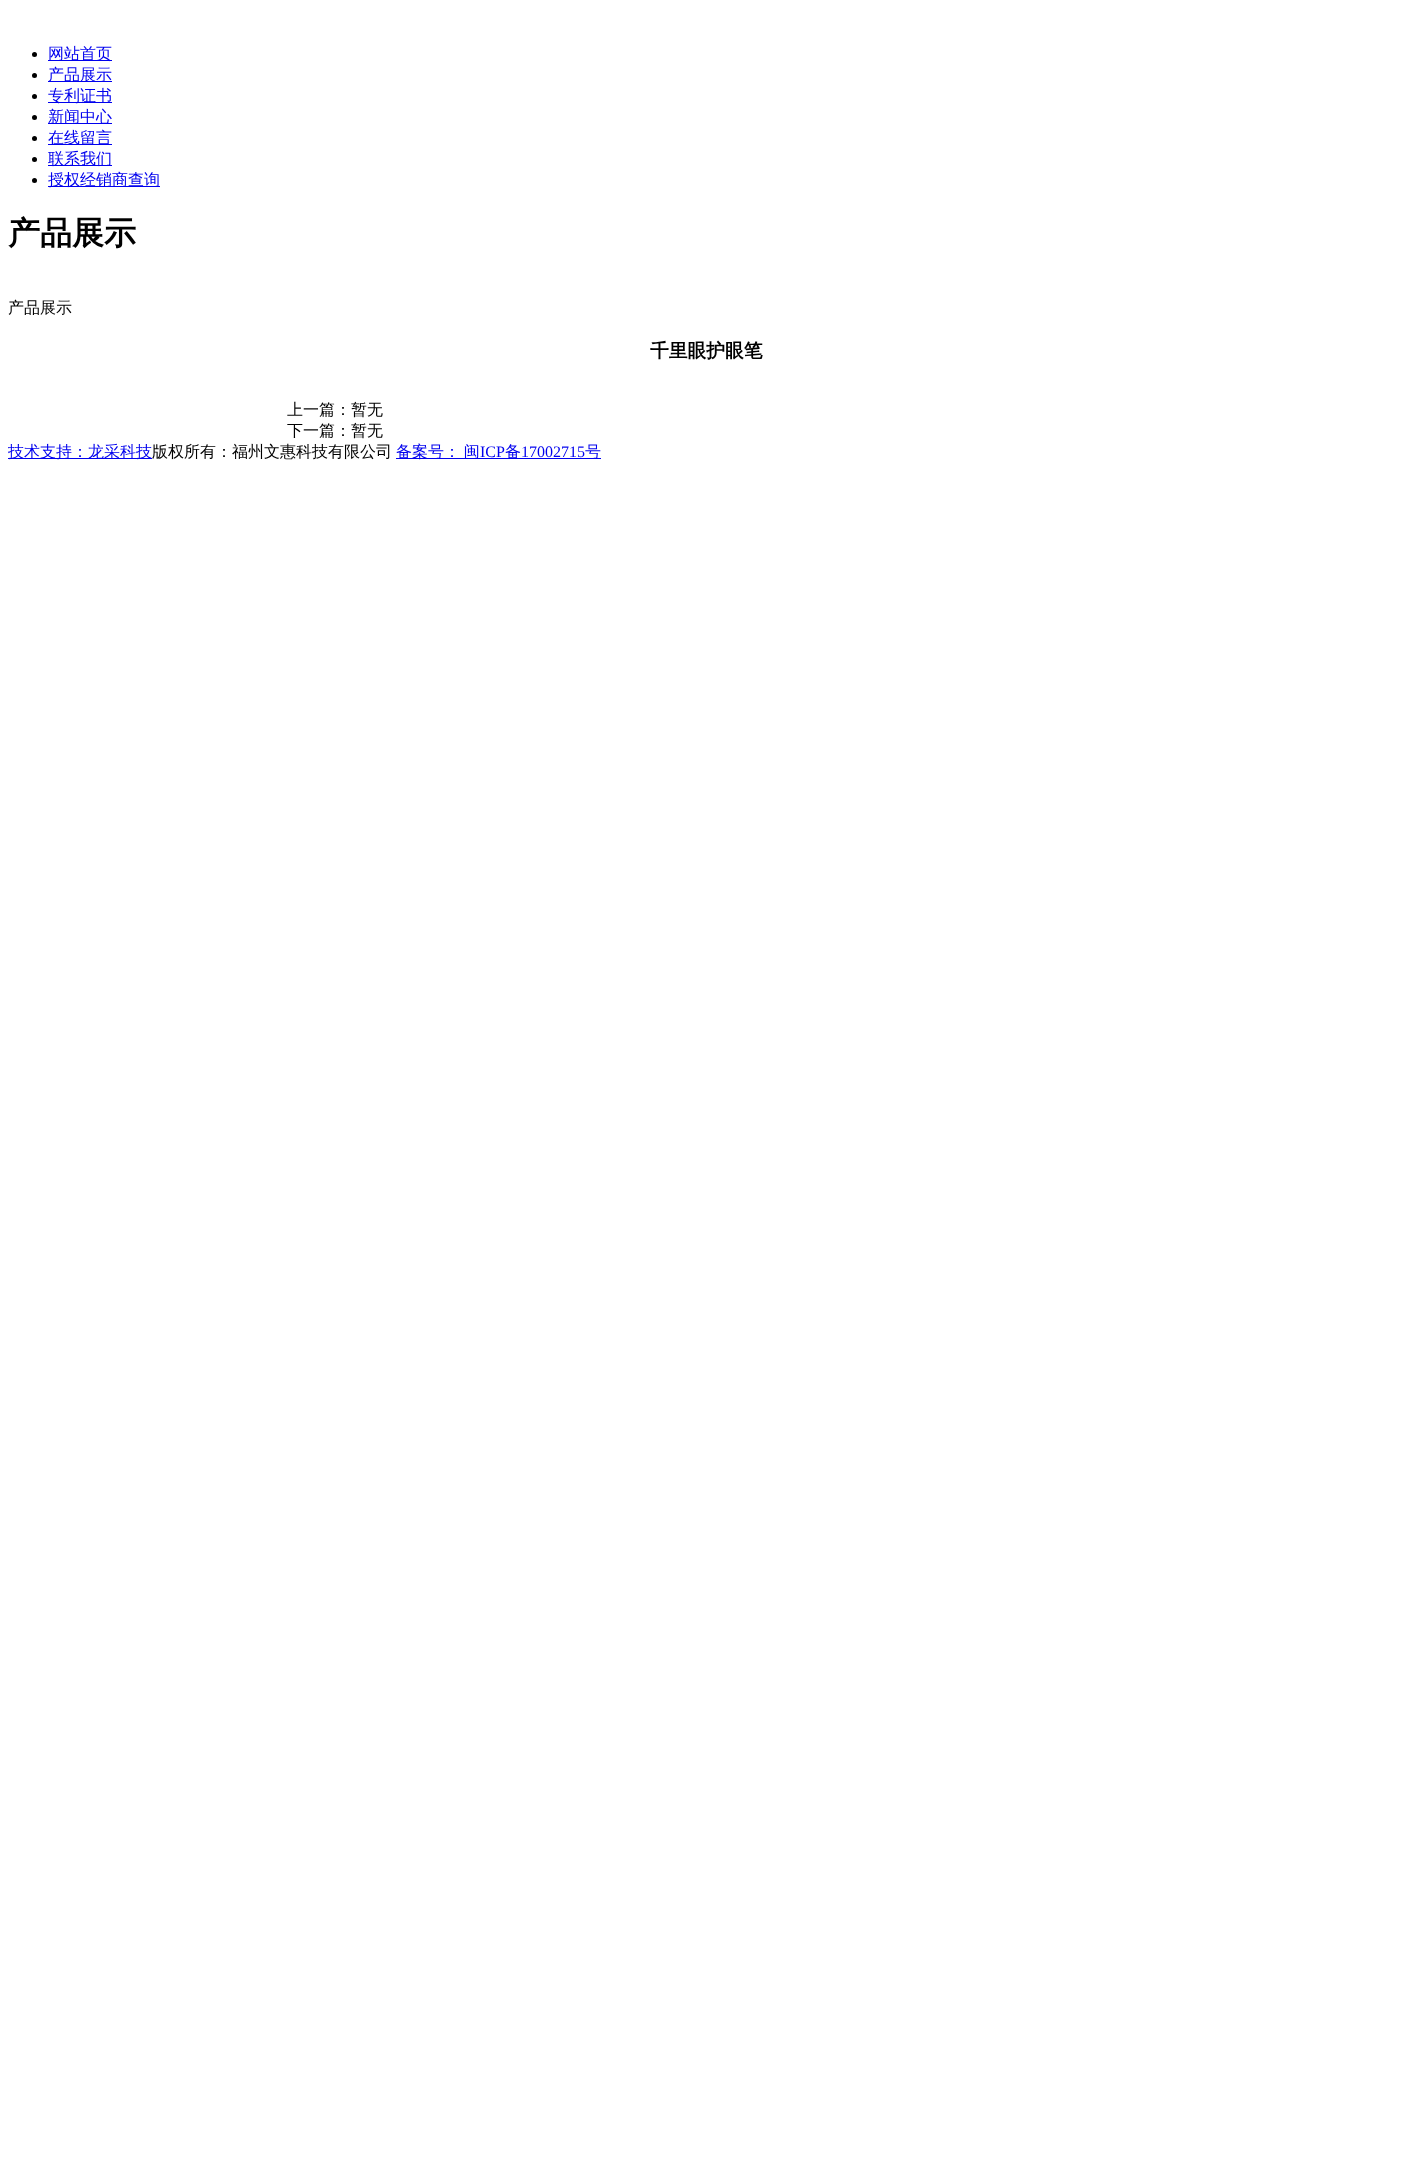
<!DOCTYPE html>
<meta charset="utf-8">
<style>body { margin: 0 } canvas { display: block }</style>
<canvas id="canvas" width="1412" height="2157"></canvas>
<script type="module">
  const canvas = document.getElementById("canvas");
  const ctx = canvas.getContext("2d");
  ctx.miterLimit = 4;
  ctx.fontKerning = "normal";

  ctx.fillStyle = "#ffffff";
  ctx.fillRect(0, 0, 1412, 2157);
  ctx.fillStyle = "#000000";
  ctx.beginPath();
  ctx.arc(34.5, 54.5, 2.5, 0, Math.PI * 2);
  ctx.fill();
  ctx.fillStyle = "#0000ee";
  ctx.fillRect(48, 60, 64, 1);
  ctx.font = "500 16px WenQuanYi Zen Hei";
  ctx.fillText("网站首页", 48, 59);
  ctx.fillStyle = "#000000";
  ctx.beginPath();
  ctx.arc(34.5, 75.5, 2.5, 0, Math.PI * 2);
  ctx.fill();
  ctx.fillStyle = "#0000ee";
  ctx.fillRect(48, 81, 64, 1);
  ctx.fillText("产品展示", 48, 80);
  ctx.fillStyle = "#000000";
  ctx.beginPath();
  ctx.arc(34.5, 96.5, 2.5, 0, Math.PI * 2);
  ctx.fill();
  ctx.fillStyle = "#0000ee";
  ctx.fillRect(48, 102, 64, 1);
  ctx.fillText("专利证书", 48, 101);
  ctx.fillStyle = "#000000";
  ctx.beginPath();
  ctx.arc(34.5, 117.5, 2.5, 0, Math.PI * 2);
  ctx.fill();
  ctx.fillStyle = "#0000ee";
  ctx.fillRect(48, 123, 64, 1);
  ctx.fillText("新闻中心", 48, 122);
  ctx.fillStyle = "#000000";
  ctx.beginPath();
  ctx.arc(34.5, 138.5, 2.5, 0, Math.PI * 2);
  ctx.fill();
  ctx.fillStyle = "#0000ee";
  ctx.fillRect(48, 144, 64, 1);
  ctx.fillText("在线留言", 48, 143);
  ctx.fillStyle = "#000000";
  ctx.beginPath();
  ctx.arc(34.5, 159.5, 2.5, 0, Math.PI * 2);
  ctx.fill();
  ctx.fillStyle = "#0000ee";
  ctx.fillRect(48, 165, 64, 1);
  ctx.fillText("联系我们", 48, 164);
  ctx.fillStyle = "#000000";
  ctx.beginPath();
  ctx.arc(34.5, 180.5, 2.5, 0, Math.PI * 2);
  ctx.fill();
  ctx.fillStyle = "#0000ee";
  ctx.fillRect(48, 186, 112, 1);
  ctx.fillText("授权经销商查询", 48, 185);
  ctx.font = "bold 32px WenQuanYi Zen Hei";
  ctx.fillStyle = "#000000";
  ctx.fillText("产品展示", 8, 244);
  ctx.font = "500 16px WenQuanYi Zen Hei";
  ctx.fillText("产品展示", 8, 313);
  ctx.font = "bold 18.75px WenQuanYi Zen Hei";
  ctx.fillText("千里眼护眼笔", 650, 357);
  ctx.font = "500 16px WenQuanYi Zen Hei";
  ctx.fillText("上一篇：暂无", 287, 415);
  ctx.fillText("下一篇：暂无", 287, 436);
  ctx.fillStyle = "#0000ee";
  ctx.fillRect(8, 458, 144, 1);
  ctx.fillText("技术支持：龙采科技", 8, 457);
  ctx.fillStyle = "#000000";
  ctx.fillText("版权所有：福州文惠科技有限公司", 152, 457);
  ctx.fillStyle = "#0000ee";
  ctx.fillRect(396, 458, 205, 1);
  ctx.wordSpacing = "-1px";
  ctx.fillText("备案号： 闽", 396, 457);
  ctx.wordSpacing = "0px";
  ctx.font = "16px Liberation Serif";
  ctx.fillText("ICP", 480, 457);
  ctx.font = "500 16px WenQuanYi Zen Hei";
  ctx.fillText("备", 505, 457);
  ctx.font = "16px Liberation Serif";
  ctx.fillText("17002715", 521, 457);
  ctx.font = "500 16px WenQuanYi Zen Hei";
  ctx.fillText("号", 585, 457);
</script>
